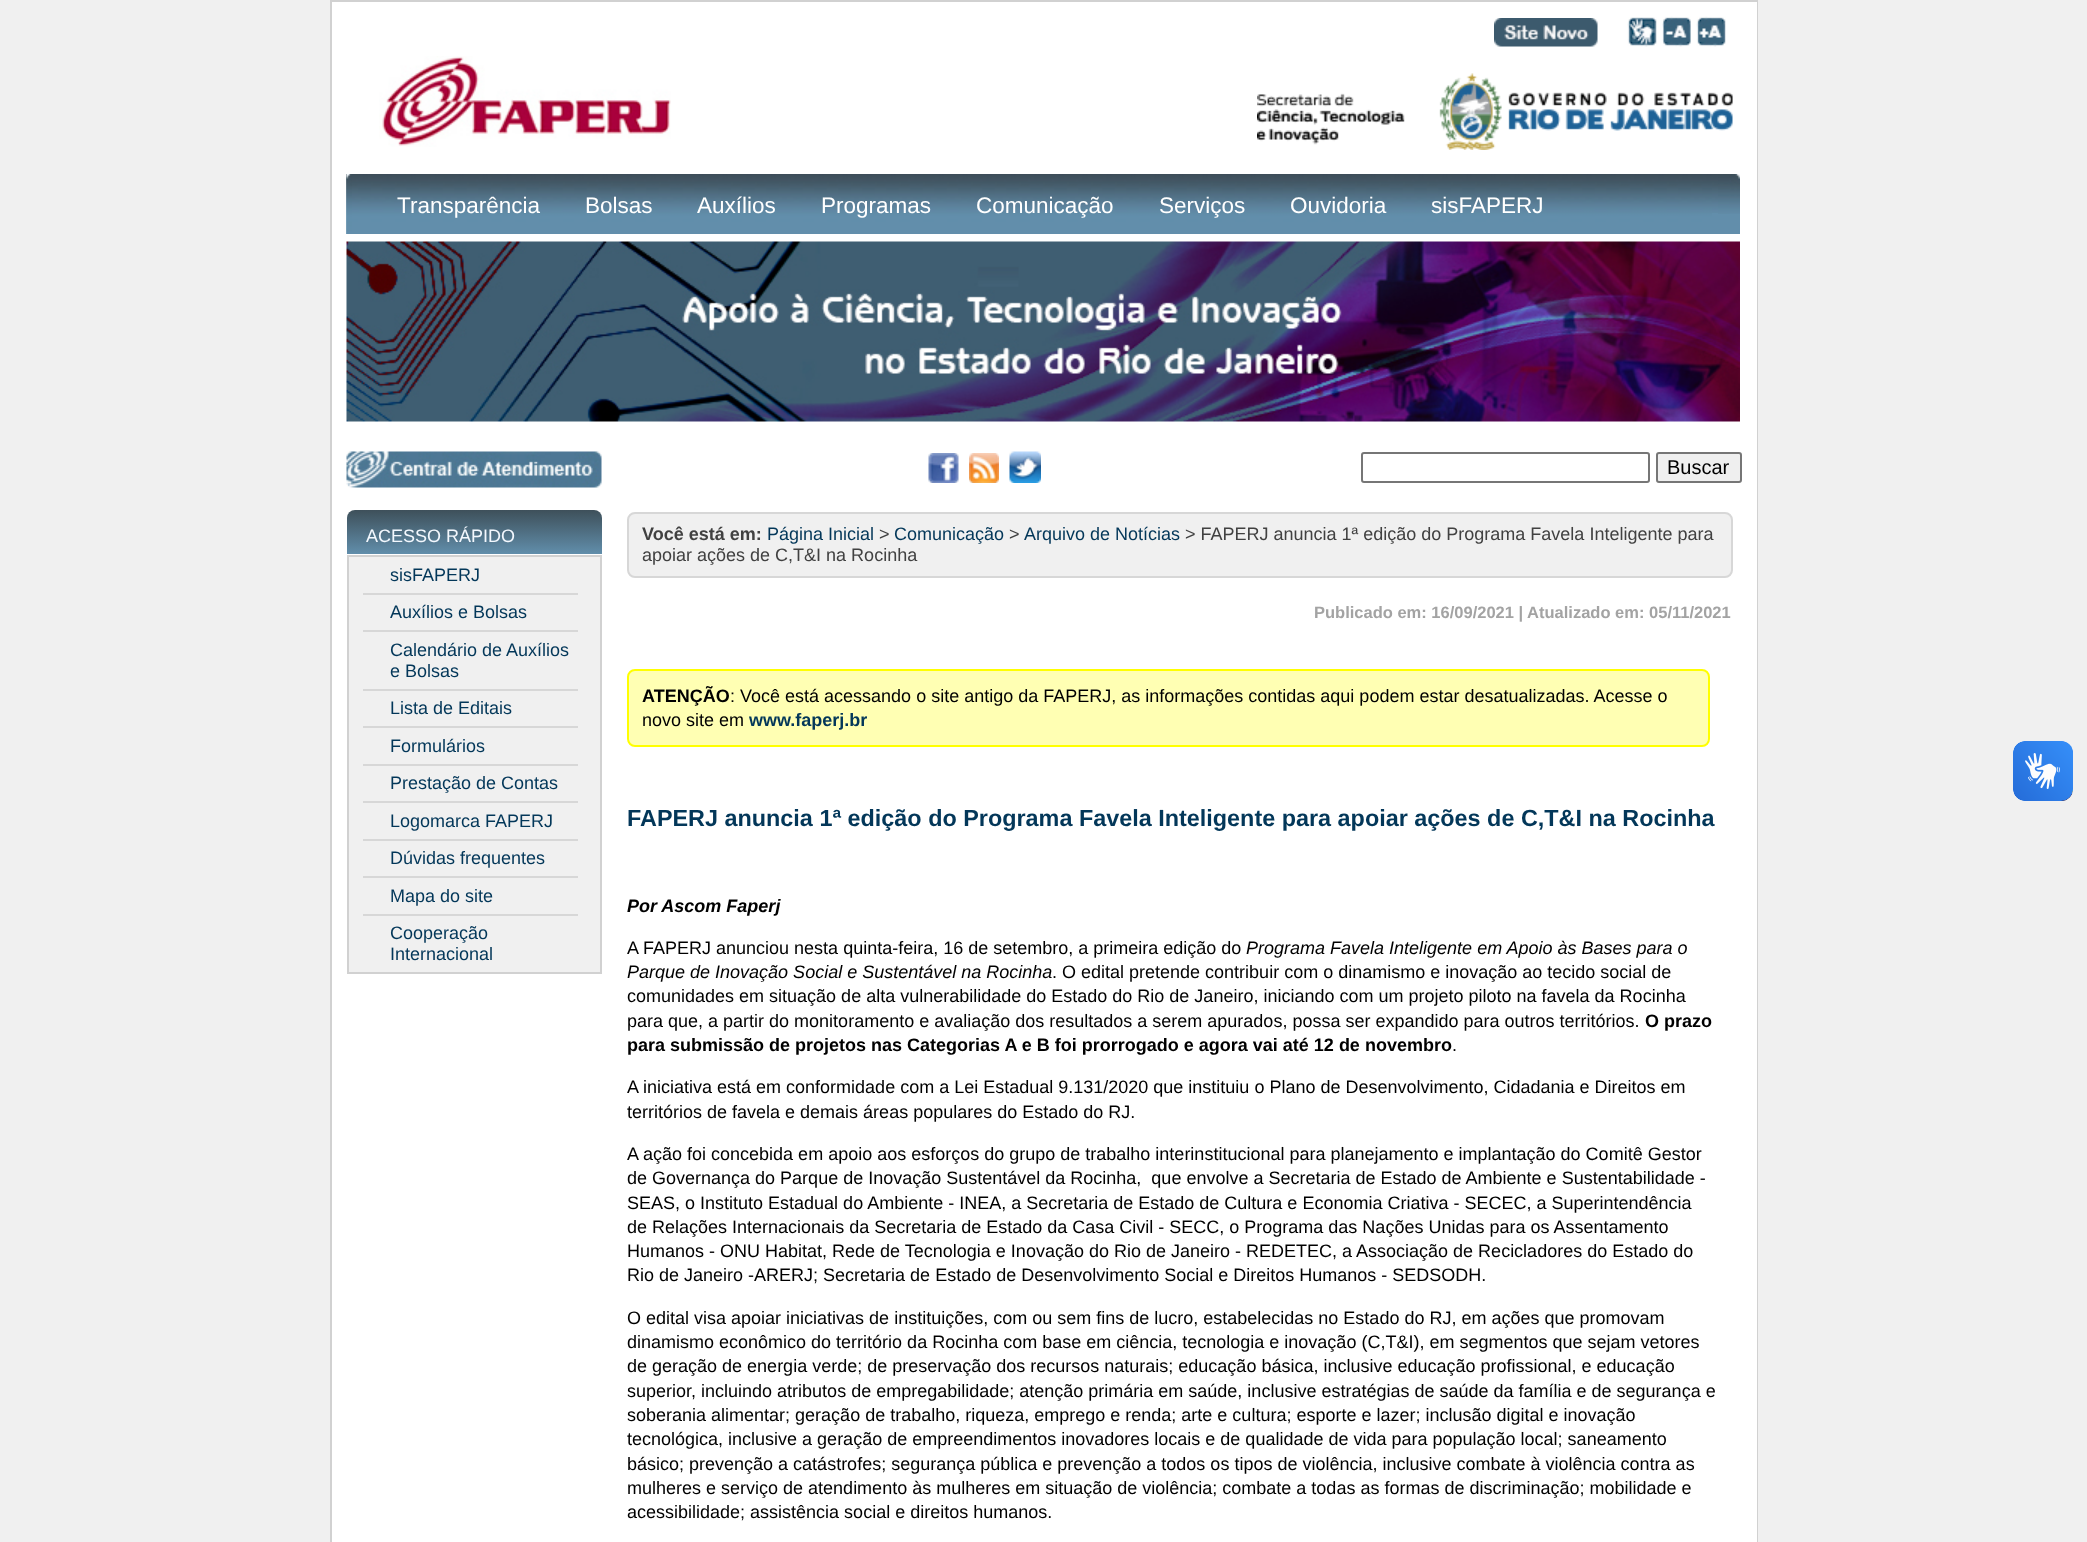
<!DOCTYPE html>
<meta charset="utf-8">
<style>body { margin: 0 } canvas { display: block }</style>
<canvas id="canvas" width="2087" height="1542"></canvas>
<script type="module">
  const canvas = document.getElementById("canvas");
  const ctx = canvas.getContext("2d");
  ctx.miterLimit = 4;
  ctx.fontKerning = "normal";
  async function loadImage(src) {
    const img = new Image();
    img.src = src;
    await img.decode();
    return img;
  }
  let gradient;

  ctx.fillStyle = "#f0f0f0";
  ctx.fillRect(0, 0, 2087, 1542);
  ctx.strokeStyle = "#d1d1d1";
  ctx.lineWidth = 2;
  ctx.strokeRect(331, 1, 1426, 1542);
  ctx.fillStyle = "#ffffff";
  ctx.fillRect(332, 2, 1425, 1540);
  ctx.drawImage(await loadImage("img1.png"), 1494, 18, 104, 29);
  ctx.drawImage(await loadImage("img2.png"), 1627, 17, 30, 30);
  ctx.drawImage(await loadImage("img3.png"), 1662, 16, 29, 31);
  ctx.drawImage(await loadImage("img4.png"), 1696, 16, 30, 31);
  ctx.drawImage(await loadImage("img5.png"), 379, 56, 292, 91);
  ctx.drawImage(await loadImage("img6.png"), 1257, 73, 476, 77);
  ctx.drawImage(await loadImage("img7.png"), 346, 174, 1366, 60);
  ctx.drawImage(await loadImage("img8.png"), 346, 174, 29, 60);
  ctx.drawImage(await loadImage("img9.png"), 346, 174, 6, 60);
  ctx.font = "22.5px Liberation Sans";
  ctx.fillText("Transparência", 397, 213);
  ctx.fillText("Bolsas", 585, 213);
  ctx.fillText("Auxílios", 697, 213);
  ctx.fillText("Programas", 821, 213);
  ctx.fillText("Comunicação", 976, 213);
  ctx.fillText("Serviços", 1159, 213);
  ctx.fillText("Ouvidoria", 1290, 213);
  ctx.fillText("sisFAPERJ", 1431, 213);
  ctx.fillStyle = "#628eab";
  ctx.fillRect(1712, 213, 28, 21);
  ctx.drawImage(await loadImage("img10.png"), 1712, 174, 6, 39);
  ctx.drawImage(await loadImage("img11.png"), 1718, 174, 22, 40);
  ctx.drawImage(await loadImage("img12.png"), 346, 241, 1394, 181);
  ctx.drawImage(await loadImage("img13.png"), 346, 451, 256, 37);
  ctx.drawImage(await loadImage("img14.png"), 928, 453, 31, 30);
  ctx.drawImage(await loadImage("img15.png"), 969, 453, 30, 30);
  ctx.drawImage(await loadImage("img16.png"), 1009, 451, 32, 32);
  ctx.beginPath();
  ctx.roundRect(1362, 453, 287, 29, 2);
  ctx.strokeStyle = "#767676";
  ctx.stroke();
  ctx.fillStyle = "#efefef";
  ctx.beginPath();
  ctx.roundRect(1657, 453, 84, 29, 2);
  ctx.fill();
  ctx.stroke();
  ctx.font = "20px Liberation Sans";
  ctx.fillStyle = "#000000";
  ctx.fillText("Buscar", 1667, 474);
  gradient = ctx.createLinearGradient(474, 510, 474, 554);
  gradient.addColorStop(0, "#3e505a");
  gradient.addColorStop(1, "#618eab");
  ctx.fillStyle = gradient;
  ctx.beginPath();
  ctx.roundRect(347, 510, 255, 44, [8, 8, 0, 0]);
  ctx.fill();
  ctx.font = "18px Liberation Sans";
  ctx.fillStyle = "#f3f8fe";
  ctx.fillText("ACESSO RÁPIDO", 366, 542);
  ctx.fillStyle = "#f0f0f0";
  ctx.beginPath();
  ctx.rect(348, 556, 253, 417);
  ctx.fill();
  ctx.strokeStyle = "#d1d1d1";
  ctx.stroke();
  ctx.fillStyle = "#d7d7d7";
  ctx.fillRect(363, 593, 215, 2);
  ctx.fillStyle = "#033759";
  ctx.fillText("sisFAPERJ", 390, 581);
  ctx.fillStyle = "#d7d7d7";
  ctx.fillRect(363, 630, 215, 2);
  ctx.fillStyle = "#033759";
  ctx.fillText("Auxílios e Bolsas", 390, 618);
  ctx.fillStyle = "#d7d7d7";
  ctx.fillRect(363, 689, 215, 2);
  ctx.fillStyle = "#033759";
  ctx.fillText("Calendário de Auxílios", 390, 656);
  ctx.fillText("e Bolsas", 390, 677);
  ctx.fillStyle = "#d7d7d7";
  ctx.fillRect(363, 726, 215, 2);
  ctx.fillStyle = "#033759";
  ctx.fillText("Lista de Editais", 390, 714);
  ctx.fillStyle = "#d7d7d7";
  ctx.fillRect(363, 764, 215, 2);
  ctx.fillStyle = "#033759";
  ctx.fillText("Formulários", 390, 752);
  ctx.fillStyle = "#d7d7d7";
  ctx.fillRect(363, 801, 215, 2);
  ctx.fillStyle = "#033759";
  ctx.fillText("Prestação de Contas", 390, 789);
  ctx.fillStyle = "#d7d7d7";
  ctx.fillRect(363, 839, 215, 2);
  ctx.fillStyle = "#033759";
  ctx.fillText("Logomarca FAPERJ", 390, 827);
  ctx.fillStyle = "#d7d7d7";
  ctx.fillRect(363, 876, 215, 2);
  ctx.fillStyle = "#033759";
  ctx.fillText("Dúvidas frequentes", 390, 864);
  ctx.fillStyle = "#d7d7d7";
  ctx.fillRect(363, 914, 215, 2);
  ctx.fillStyle = "#033759";
  ctx.fillText("Mapa do site", 390, 902);
  ctx.fillText("Cooperação", 390, 939);
  ctx.fillText("Internacional", 390, 960);
  ctx.fillStyle = "#f0f0f0";
  ctx.beginPath();
  ctx.roundRect(628, 513, 1104, 64, 7);
  ctx.fill();
  ctx.strokeStyle = "#d7d7d7";
  ctx.stroke();
  ctx.font = "bold 18px Liberation Sans";
  ctx.fillStyle = "#414141";
  ctx.fillText("Você está em:", 642, 540);
  ctx.font = "18px Liberation Sans";
  ctx.fillStyle = "#033759";
  ctx.fillText("Página Inicial", 767, 540);
  ctx.fillStyle = "#414141";
  ctx.fillText(">", 879, 540);
  ctx.fillStyle = "#033759";
  ctx.fillText("Comunicação", 894, 540);
  ctx.fillStyle = "#414141";
  ctx.fillText(">", 1009, 540);
  ctx.fillStyle = "#033759";
  ctx.fillText("Arquivo de Notícias", 1024, 540);
  ctx.fillStyle = "#414141";
  ctx.fillText("> FAPERJ anuncia 1ª edição do Programa Favela Inteligente para", 1185, 540);
  ctx.fillText("apoiar ações de C,T&I na Rocinha", 642, 561);
  ctx.font = "bold 16.5px Liberation Sans";
  ctx.fillStyle = "#a3a3a3";
  ctx.fillText("Publicado em: 16/09/2021 | Atualizado em: 05/11/2021", 1314, 618);
  ctx.fillStyle = "#ffffb3";
  ctx.beginPath();
  ctx.roundRect(628, 670, 1081, 76, 7);
  ctx.fill();
  ctx.strokeStyle = "#ffff00";
  ctx.stroke();
  ctx.font = "bold 18px Liberation Sans";
  ctx.fillStyle = "#000000";
  ctx.fillText("ATENÇÃO", 642, 702);
  ctx.font = "18px Liberation Sans";
  ctx.fillText(": Você está acessando o site antigo da FAPERJ, as informações contidas aqui podem estar desatualizadas. Acesse o", 730, 702);
  ctx.fillText("novo site em", 642, 726);
  ctx.font = "bold 18px Liberation Sans";
  ctx.fillStyle = "#033759";
  ctx.fillText("www.faperj.br", 749, 726);
  ctx.font = "bold 23.4px Liberation Sans";
  ctx.fillText("FAPERJ anuncia 1ª edição do Programa Favela Inteligente para apoiar ações de C,T&I na Rocinha", 627, 826);
  ctx.font = "italic bold 18px Liberation Sans";
  ctx.fillStyle = "#000000";
  ctx.fillText("Por Ascom Faperj", 627, 912);
  ctx.font = "18px Liberation Sans";
  ctx.fillText("A FAPERJ anunciou nesta quinta-feira, 16 de setembro, a primeira edição do", 627, 954);
  ctx.font = "italic 18px Liberation Sans";
  ctx.fillText("Programa Favela Inteligente em Apoio às Bases para o", 1246, 954);
  ctx.fillText("Parque de Inovação Social e Sustentável na Rocinha", 627, 978);
  ctx.font = "18px Liberation Sans";
  ctx.fillText(". O edital pretende contribuir com o dinamismo e inovação ao tecido social de", 1052, 978);
  ctx.fillText("comunidades em situação de alta vulnerabilidade do Estado do Rio de Janeiro, iniciando com um projeto piloto na favela da Rocinha", 627, 1002);
  ctx.fillText("para que, a partir do monitoramento e avaliação dos resultados a serem apurados, possa ser expandido para outros territórios.", 627, 1027);
  ctx.font = "bold 18px Liberation Sans";
  ctx.fillText("O prazo", 1645, 1027);
  ctx.fillText("para submissão de projetos nas Categorias A e B foi prorrogado e agora vai até 12 de novembro", 627, 1051);
  ctx.font = "18px Liberation Sans";
  ctx.fillText(".", 1452, 1051);
  ctx.fillText("A iniciativa está em conformidade com a Lei Estadual 9.131/2020 que instituiu o Plano de Desenvolvimento, Cidadania e Direitos em", 627, 1093);
  ctx.fillText("territórios de favela e demais áreas populares do Estado do RJ.", 627, 1118);
  ctx.fillText("A ação foi concebida em apoio aos esforços do grupo de trabalho interinstitucional para planejamento e implantação do Comitê Gestor", 627, 1160);
  ctx.fillText("de Governança do Parque de Inovação Sustentável da Rocinha,  que envolve a Secretaria de Estado de Ambiente e Sustentabilidade -", 627, 1184);
  ctx.fillText("SEAS, o Instituto Estadual do Ambiente - INEA, a Secretaria de Estado de Cultura e Economia Criativa - SECEC, a Superintendência", 627, 1209);
  ctx.fillText("de Relações Internacionais da Secretaria de Estado da Casa Civil - SECC, o Programa das Nações Unidas para os Assentamento", 627, 1233);
  ctx.fillText("Humanos - ONU Habitat, Rede de Tecnologia e Inovação do Rio de Janeiro - REDETEC, a Associação de Recicladores do Estado do", 627, 1257);
  ctx.fillText("Rio de Janeiro -ARERJ; Secretaria de Estado de Desenvolvimento Social e Direitos Humanos - SEDSODH.", 627, 1281);
  ctx.fillText("O edital visa apoiar iniciativas de instituições, com ou sem fins de lucro, estabelecidas no Estado do RJ, em ações que promovam", 627, 1324);
  ctx.fillText("dinamismo econômico do território da Rocinha com base em ciência, tecnologia e inovação (C,T&I), em segmentos que sejam vetores", 627, 1348);
  ctx.fillText("de geração de energia verde; de preservação dos recursos naturais; educação básica, inclusive educação profissional, e educação", 627, 1372);
  ctx.fillText("superior, incluindo atributos de empregabilidade; atenção primária em saúde, inclusive estratégias de saúde da família e de segurança e", 627, 1397);
  ctx.fillText("soberania alimentar; geração de trabalho, riqueza, emprego e renda; arte e cultura; esporte e lazer; inclusão digital e inovação", 627, 1421);
  ctx.fillText("tecnológica, inclusive a geração de empreendimentos inovadores locais e de qualidade de vida para população local; saneamento", 627, 1445);
  ctx.fillText("básico; prevenção a catástrofes; segurança pública e prevenção a todos os tipos de violência, inclusive combate à violência contra as", 627, 1470);
  ctx.fillText("mulheres e serviço de atendimento às mulheres em situação de violência; combate a todas as formas de discriminação; mobilidade e", 627, 1494);
  ctx.fillText("acessibilidade; assistência social e direitos humanos.", 627, 1518);
  ctx.drawImage(await loadImage("img17.png"), 2013, 741, 60, 60);
  ctx.drawImage(await loadImage("img18.png"), 2013, 741, 60, 60);
</script>
